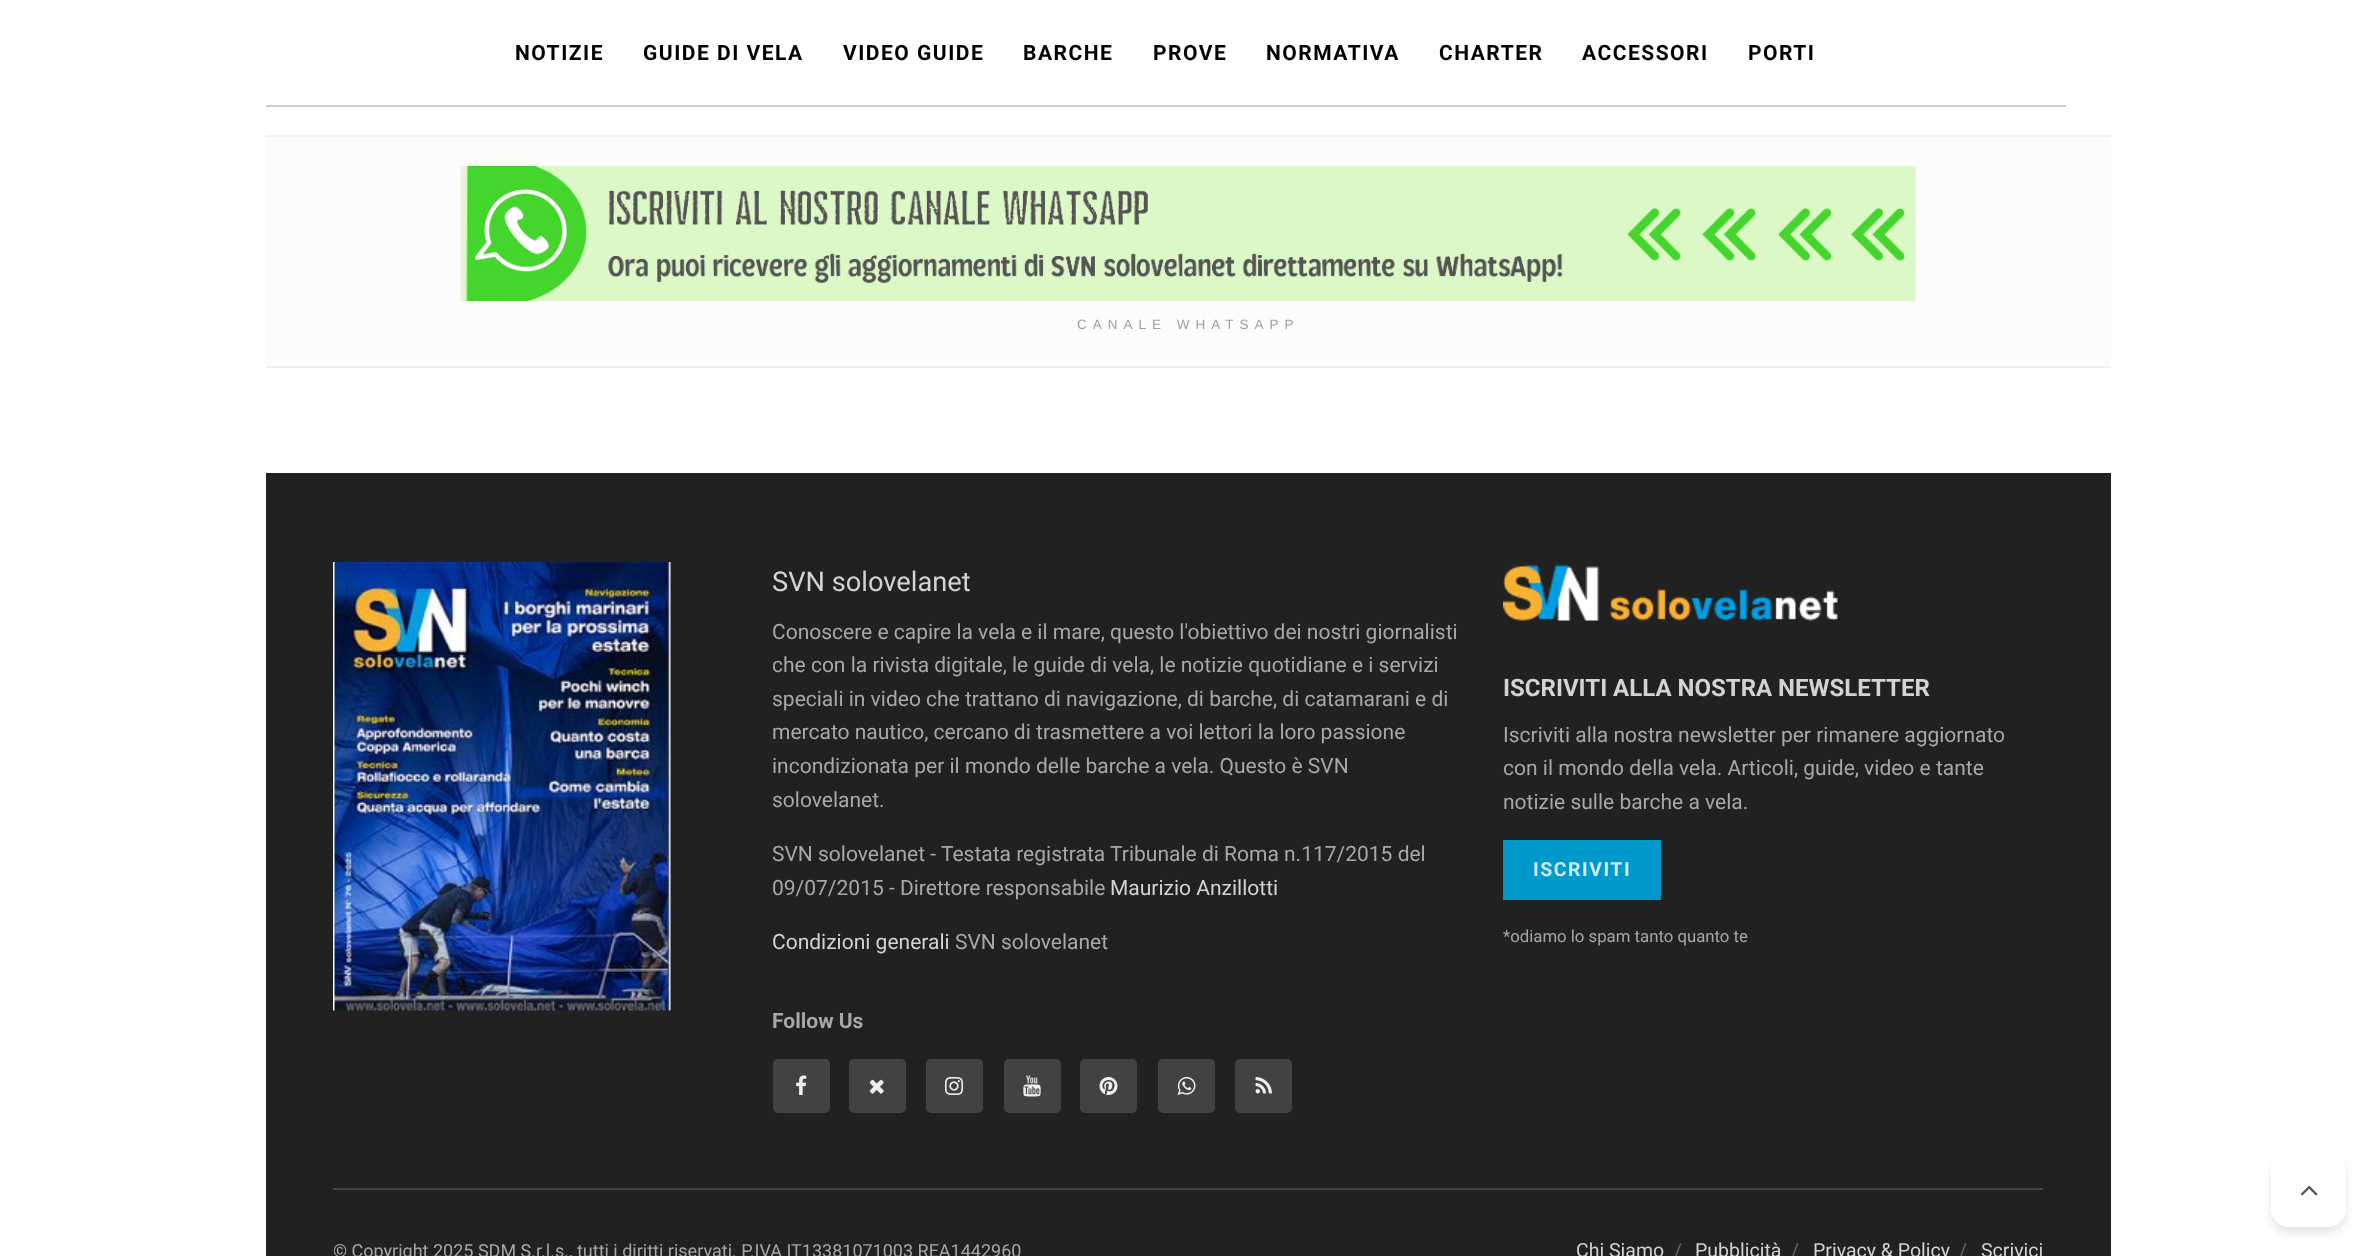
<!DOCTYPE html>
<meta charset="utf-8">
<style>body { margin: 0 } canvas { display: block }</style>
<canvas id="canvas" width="2375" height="1256"></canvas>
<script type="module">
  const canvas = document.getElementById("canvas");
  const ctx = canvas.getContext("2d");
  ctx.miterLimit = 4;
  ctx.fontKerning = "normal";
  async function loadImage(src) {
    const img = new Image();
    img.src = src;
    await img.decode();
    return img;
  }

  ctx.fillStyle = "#ffffff";
  ctx.fillRect(0, 0, 2375, 1256);
  ctx.fillStyle = "#cccccc";
  ctx.fillRect(266, 105, 1800, 2);
  ctx.letterSpacing = "1.5px";
  ctx.font = "bold 21px Roboto";
  ctx.fillStyle = "#000000";
  ctx.fillText("NOTIZIE", 515, 60);
  ctx.fillText("GUIDE DI VELA", 643, 60);
  ctx.fillText("VIDEO GUIDE", 843, 60);
  ctx.fillText("BARCHE", 1023, 60);
  ctx.fillText("PROVE", 1153, 60);
  ctx.fillText("NORMATIVA", 1266, 60);
  ctx.fillText("CHARTER", 1439, 60);
  ctx.fillText("ACCESSORI", 1582, 60);
  ctx.fillText("PORTI", 1748, 60);
  ctx.fillStyle = "#fcfcfc";
  ctx.fillRect(266, 137, 1845, 229);
  ctx.fillStyle = "#f0f0f0";
  ctx.fillRect(266, 135, 1845, 2);
  ctx.fillRect(266, 366, 1845, 2);
  ctx.drawImage(await loadImage("img1.png"), 460, 166, 1456, 135);
  ctx.letterSpacing = "6px";
  ctx.font = "13.5px Liberation Sans";
  ctx.fillStyle = "#a0a0a0";
  ctx.fillText("CANALE WHATSAPP", 1077, 329);
  ctx.fillStyle = "#212121";
  ctx.fillRect(266, 473, 1845, 783);
  ctx.drawImage(await loadImage("img2.png"), 333, 562, 338, 449);
  ctx.letterSpacing = "0px";
  ctx.font = "27.25px Roboto";
  ctx.fillStyle = "#d3d3d3";
  ctx.fillText("SVN solovelanet", 772, 591);
  ctx.font = "21px Roboto";
  ctx.fillStyle = "#a8a8aa";
  ctx.fillText("Conoscere e capire la vela e il mare, questo l'obiettivo dei nostri giornalisti", 772, 639);
  ctx.fillText("che con la rivista digitale, le guide di vela, le notizie quotidiane e i servizi", 772, 672);
  ctx.fillText("speciali in video che trattano di navigazione, di barche, di catamarani e di", 772, 706);
  ctx.fillText("mercato nautico, cercano di trasmettere a voi lettori la loro passione", 772, 739);
  ctx.fillText("incondizionata per il mondo delle barche a vela. Questo è SVN", 772, 773);
  ctx.fillText("solovelanet.", 772, 807);
  ctx.fillText("SVN solovelanet - Testata registrata Tribunale di Roma n.117/2015 del", 772, 861);
  ctx.fillText("09/07/2015 - Direttore responsabile", 772, 895);
  ctx.fillStyle = "#d3d3d3";
  ctx.fillText("Maurizio Anzillotti", 1110, 895);
  ctx.fillText("Condizioni generali", 772, 949);
  ctx.fillStyle = "#a8a8aa";
  ctx.fillText("SVN solovelanet", 955, 949);
  ctx.font = "bold 21px Roboto";
  ctx.fillText("Follow Us", 772, 1028);
  ctx.fillStyle = "#424242";
  ctx.beginPath();
  ctx.roundRect(773, 1059, 57, 54, 5);
  ctx.fill();
  ctx.drawImage(await loadImage("img3.png"), 796, 1075, 11, 20);
  ctx.beginPath();
  ctx.roundRect(849, 1059, 57, 54, 5);
  ctx.fill();
  ctx.drawImage(await loadImage("img4.png"), 869, 1079, 15, 15);
  ctx.beginPath();
  ctx.roundRect(926, 1059, 57, 54, 5);
  ctx.fill();
  ctx.drawImage(await loadImage("img5.png"), 945, 1077, 18, 18);
  ctx.beginPath();
  ctx.roundRect(1004, 1059, 57, 54, 5);
  ctx.fill();
  ctx.drawImage(await loadImage("img6.png"), 1023, 1075, 18, 22);
  ctx.beginPath();
  ctx.roundRect(1080, 1059, 57, 54, 5);
  ctx.fill();
  ctx.drawImage(await loadImage("img7.png"), 1099, 1077, 19, 18);
  ctx.beginPath();
  ctx.roundRect(1158, 1059, 57, 54, 5);
  ctx.fill();
  ctx.drawImage(await loadImage("img8.png"), 1177, 1076, 19, 19);
  ctx.beginPath();
  ctx.roundRect(1235, 1059, 57, 54, 5);
  ctx.fill();
  ctx.drawImage(await loadImage("img9.png"), 1255, 1077, 17, 17);
  ctx.drawImage(await loadImage("img10.png"), 1503, 564, 335, 57);
  ctx.font = "bold 24px Roboto";
  ctx.fillStyle = "#d3d3d3";
  ctx.fillText("ISCRIVITI ALLA NOSTRA NEWSLETTER", 1503, 696);
  ctx.font = "21px Roboto";
  ctx.fillStyle = "#a8a8aa";
  ctx.fillText("Iscriviti alla nostra newsletter per rimanere aggiornato", 1503, 742);
  ctx.fillText("con il mondo della vela. Articoli, guide, video e tante", 1503, 775);
  ctx.fillText("notizie sulle barche a vela.", 1503, 809);
  ctx.fillStyle = "#0099cc";
  ctx.fillRect(1503, 840, 158, 60);
  ctx.letterSpacing = "1.5px";
  ctx.font = "bold 19.5px Roboto";
  ctx.fillStyle = "#ccebf5";
  ctx.fillText("ISCRIVITI", 1533, 876);
  ctx.letterSpacing = "0px";
  ctx.font = "16.75px Roboto";
  ctx.fillStyle = "#a8a8aa";
  ctx.fillText("*odiamo lo spam tanto quanto te", 1503, 942);
  ctx.fillStyle = "#424242";
  ctx.fillRect(333, 1188, 1710, 2);
  ctx.font = "18px Roboto";
  ctx.fillStyle = "#a8a8aa";
  ctx.fillText("© Copyright 2025 SDM S.r.l.s., tutti i diritti riservati. P.IVA IT13381071003 REA1442960", 333, 1257);
  ctx.font = "19.5px Roboto";
  ctx.fillStyle = "#d3d3d3";
  ctx.fillText("Chi Siamo", 1576, 1257);
  ctx.fillStyle = "#646464";
  ctx.fillText("/", 1674, 1257);
  ctx.fillStyle = "#d3d3d3";
  ctx.fillText("Pubblicità", 1695, 1257);
  ctx.fillStyle = "#646464";
  ctx.fillText("/", 1791, 1257);
  ctx.fillStyle = "#d3d3d3";
  ctx.fillText("Privacy & Policy", 1813, 1257);
  ctx.fillStyle = "#646464";
  ctx.fillText("/", 1959, 1257);
  ctx.fillStyle = "#d3d3d3";
  ctx.fillText("Scrivici", 1981, 1257);
  ctx.fillStyle = "rgba(0, 0, 0, 0.1)";
  ctx.filter = "blur(4.5px)";
  ctx.beginPath();
  ctx.roundRect(2271, 1158, 75, 75, 18);
  ctx.fill();
  ctx.filter = "none";
  ctx.fillStyle = "#ffffff";
  ctx.beginPath();
  ctx.roundRect(2271, 1152, 75, 75, 18);
  ctx.fill();
  ctx.drawImage(await loadImage("img11.png"), 2300, 1185, 18, 11);
</script>
